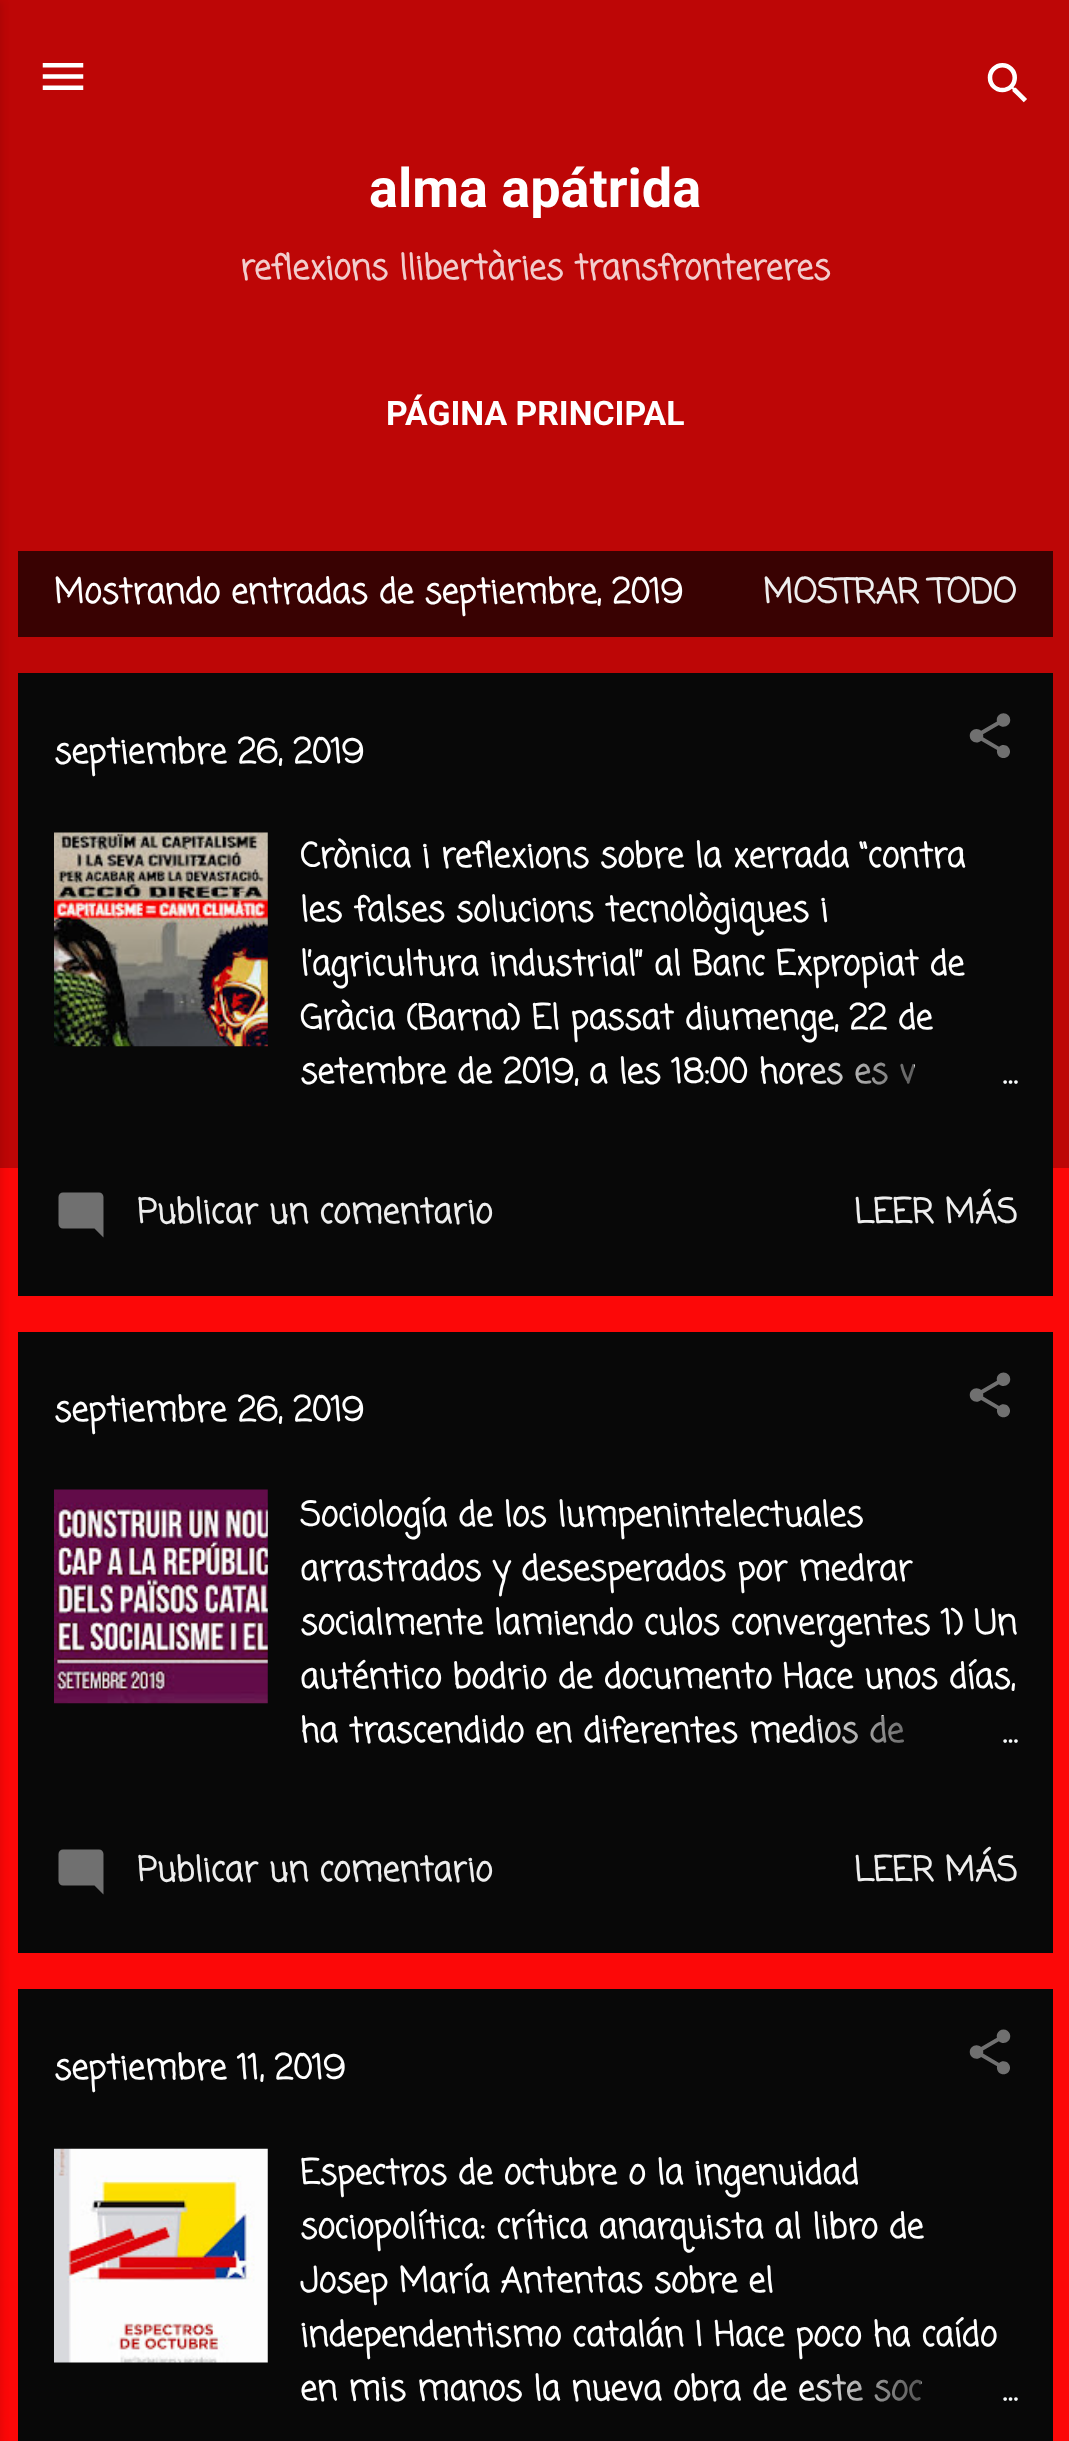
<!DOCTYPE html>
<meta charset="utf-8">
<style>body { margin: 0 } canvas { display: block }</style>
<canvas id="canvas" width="1069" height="2441"></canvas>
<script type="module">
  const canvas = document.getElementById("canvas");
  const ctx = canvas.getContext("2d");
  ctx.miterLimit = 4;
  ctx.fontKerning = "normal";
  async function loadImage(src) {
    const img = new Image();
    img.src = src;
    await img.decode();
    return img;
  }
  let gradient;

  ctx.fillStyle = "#fc0808";
  ctx.fillRect(0, 0, 1069, 2441);
  ctx.fillStyle = "#bd0606";
  ctx.fillRect(0, 0, 1069, 1168);
  ctx.fillStyle = "rgba(0, 0, 0, 0.1)";
  ctx.filter = "blur(3.5px)";
  ctx.beginPath();
  ctx.rect(-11, 2, 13, 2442);
  ctx.fill();
  ctx.filter = "none";
  ctx.drawImage(await loadImage("img1.png"), 42, 63, 42, 27);
  ctx.drawImage(await loadImage("img2.png"), 987, 63, 40, 40);
  ctx.font = "bold 54px Roboto";
  ctx.fillStyle = "#ffffff";
  ctx.fillText("alma apátrida", 369, 207);
  ctx.font = "bold 33.75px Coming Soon";
  ctx.fillStyle = "#f2cdcd";
  ctx.fillText("reflexions llibertàries transfrontereres", 240, 279);
  ctx.font = "bold 33.75px Roboto";
  ctx.fillStyle = "#ffffff";
  ctx.fillText("PÁGINA PRINCIPAL", 386, 425);
  ctx.fillStyle = "#390202";
  ctx.fillRect(18, 551, 1035, 86);
  ctx.font = "bold 33.75px Coming Soon";
  ctx.fillStyle = "#ffffff";
  ctx.fillText("Mostrando entradas de septiembre, 2019", 54, 603);
  ctx.fillStyle = "#eeeeee";
  ctx.fillText("MOSTRAR TODO", 763, 603);
  ctx.fillStyle = "#080808";
  ctx.fillRect(18, 673, 1035, 623);
  ctx.fillStyle = "#ffffff";
  ctx.fillText("septiembre 26, 2019", 54, 763);
  ctx.drawImage(await loadImage("img3.png"), 969, 713, 42, 45);
  ctx.drawImage(await loadImage("img4.png"), 54, 832, 214, 215);
  ctx.fillText("Crònica i reflexions sobre la xerrada “contra", 300, 867);
  ctx.fillText("les falses solucions tecnològiques i", 300, 921);
  ctx.fillText("l’agricultura industrial” al Banc Expropiat de", 300, 975);
  ctx.fillText("Gràcia (Barna) El passat diumenge, 22 de", 300, 1029);
  ctx.fillText("setembre de 2019, a les 18:00 hores es v", 300, 1083);
  gradient = ctx.createLinearGradient(1017, 1076, 801, 1076);
  gradient.addColorStop(0, "#080808");
  gradient.addColorStop(0.2, "#080808");
  gradient.addColorStop(1, "rgba(8, 8, 8, 0)");
  ctx.fillStyle = gradient;
  ctx.fillRect(805, 1063, 109, 22);
  ctx.fillStyle = "#f8fbfc";
  ctx.fillText("…", 1002, 1083);
  ctx.drawImage(await loadImage("img5.png"), 58, 1192, 46, 46);
  ctx.fillStyle = "#eeeeee";
  ctx.fillText("Publicar un comentario", 137, 1223);
  ctx.fillText("LEER MÁS", 854, 1223);
  ctx.fillStyle = "#080808";
  ctx.fillRect(18, 1332, 1035, 621);
  ctx.fillStyle = "#ffffff";
  ctx.fillText("septiembre 26, 2019", 54, 1421);
  ctx.drawImage(await loadImage("img6.png"), 969, 1372, 42, 46);
  ctx.drawImage(await loadImage("img7.png"), 54, 1489, 214, 215);
  ctx.fillText("Sociología de los lumpenintelectuales", 300, 1526);
  ctx.fillText("arrastrados y desesperados por medrar", 300, 1580);
  ctx.fillText("socialmente lamiendo culos convergentes 1) Un", 300, 1634);
  ctx.fillText("auténtico bodrio de documento Hace unos días,", 300, 1688);
  ctx.fillText("ha trascendido en diferentes medios de", 300, 1742);
  gradient = ctx.createLinearGradient(1017, 1733, 801, 1733);
  gradient.addColorStop(0, "#080808");
  gradient.addColorStop(0.2, "#080808");
  gradient.addColorStop(1, "rgba(8, 8, 8, 0)");
  ctx.fillStyle = gradient;
  ctx.fillRect(805, 1716, 99, 28);
  ctx.fillStyle = "#f8fbfc";
  ctx.fillText("…", 1002, 1742);
  ctx.drawImage(await loadImage("img5.png"), 58, 1849, 46, 46);
  ctx.fillStyle = "#eeeeee";
  ctx.fillText("Publicar un comentario", 137, 1881);
  ctx.fillText("LEER MÁS", 854, 1881);
  ctx.fillStyle = "#080808";
  ctx.fillRect(18, 1989, 1035, 452);
  ctx.fillStyle = "#ffffff";
  ctx.fillText("septiembre 11, 2019", 54, 2079);
  ctx.drawImage(await loadImage("img8.png"), 969, 2029, 42, 46);
  ctx.drawImage(await loadImage("img9.png"), 54, 2148, 214, 215);
  ctx.fillText("Espectros de octubre o la ingenuidad", 300, 2184);
  ctx.fillText("sociopolítica: crítica anarquista al libro de", 300, 2238);
  ctx.fillText("Josep María Antentas sobre el", 300, 2292);
  ctx.fillText("independentismo catalán I Hace poco ha caído", 300, 2346);
  ctx.fillText("en mis manos la nueva obra de este soc", 300, 2400);
  gradient = ctx.createLinearGradient(1017, 2392, 801, 2392);
  gradient.addColorStop(0, "#080808");
  gradient.addColorStop(0.2, "#080808");
  gradient.addColorStop(1, "rgba(8, 8, 8, 0)");
  ctx.fillStyle = gradient;
  ctx.fillRect(805, 2375, 116, 27);
  ctx.fillStyle = "#f8fbfc";
  ctx.fillText("…", 1002, 2400);
</script>
